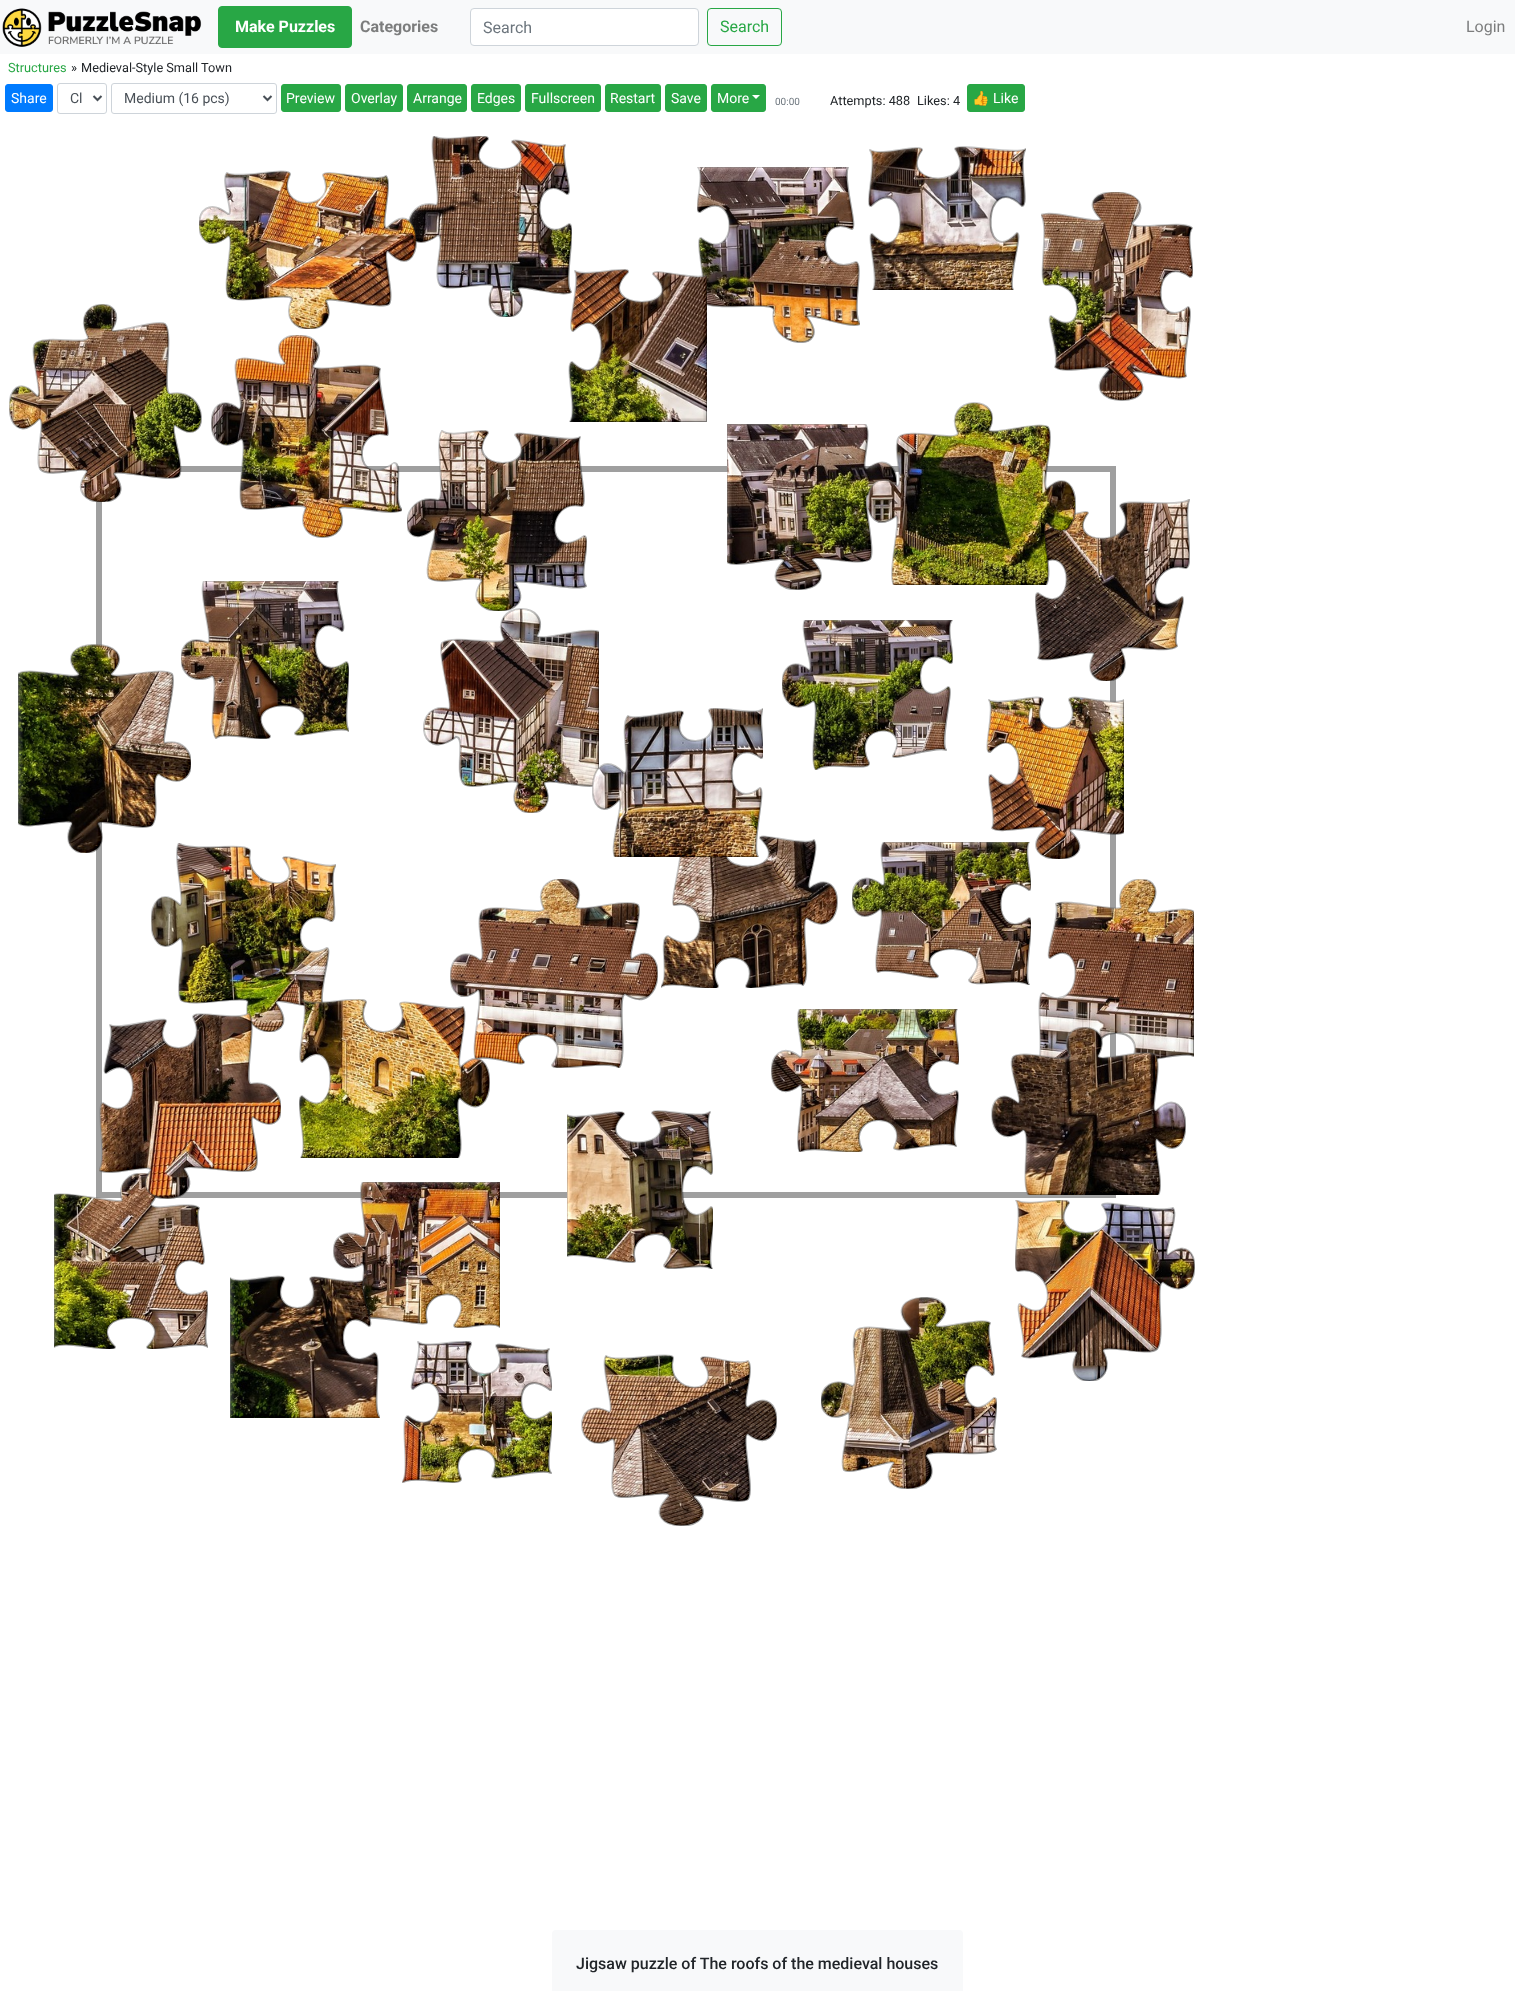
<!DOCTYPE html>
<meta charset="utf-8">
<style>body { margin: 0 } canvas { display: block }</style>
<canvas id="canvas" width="1515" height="1991"></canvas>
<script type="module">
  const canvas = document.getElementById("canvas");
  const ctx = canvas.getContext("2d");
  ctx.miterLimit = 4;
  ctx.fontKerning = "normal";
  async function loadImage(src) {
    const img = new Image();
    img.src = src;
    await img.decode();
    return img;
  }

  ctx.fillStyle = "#ffffff";
  ctx.fillRect(0, 0, 1515, 1991);
  ctx.fillStyle = "#f8f9fa";
  ctx.fillRect(0, 0, 1515, 54);
  ctx.drawImage(await loadImage("img1.png"), 2, 8, 200, 39);
  ctx.fillStyle = "#28a745";
  ctx.beginPath();
  ctx.roundRect(218.5, 6.5, 133, 41, 3.5);
  ctx.fill();
  ctx.strokeStyle = "#28a745";
  ctx.stroke();
  ctx.font = "bold 16px Roboto";
  ctx.fillStyle = "#ffffff";
  ctx.fillText("Make Puzzles", 235, 32);
  ctx.fillStyle = "#7c7d7d";
  ctx.fillText("Categories", 360, 32);
  ctx.fillStyle = "#ffffff";
  ctx.beginPath();
  ctx.roundRect(470.5, 8.5, 228, 37, 3.5);
  ctx.fill();
  ctx.strokeStyle = "#ced4da";
  ctx.stroke();
  ctx.font = "16px Roboto";
  ctx.fillStyle = "#6c757d";
  ctx.fillText("Search", 483, 33);
  ctx.beginPath();
  ctx.roundRect(707.5, 8.5, 74, 37, 3.5);
  ctx.strokeStyle = "#28a745";
  ctx.stroke();
  ctx.fillStyle = "#28a745";
  ctx.fillText("Search", 720, 32);
  ctx.fillStyle = "#7c7d7d";
  ctx.fillText("Login", 1466, 32);
  ctx.font = "12.75px Roboto";
  ctx.fillStyle = "#28a745";
  ctx.fillText("Structures", 8, 72);
  ctx.fillStyle = "#212529";
  ctx.fillText("»", 71, 72);
  ctx.fillText("Medieval-Style Small Town", 81, 72);
  ctx.fillStyle = "#007bff";
  ctx.beginPath();
  ctx.roundRect(5.5, 84.5, 47, 27, 2.5);
  ctx.fill();
  ctx.strokeStyle = "#007bff";
  ctx.stroke();
  ctx.font = "14px Roboto";
  ctx.fillStyle = "#ffffff";
  ctx.fillText("Share", 11, 103);
  ctx.beginPath();
  ctx.roundRect(57.5, 83.5, 49, 30, 2.5);
  ctx.strokeStyle = "#ced4da";
  ctx.stroke();
  ctx.beginPath();
  ctx.moveTo(93.5, 96);
  ctx.lineTo(97.5, 100);
  ctx.lineTo(101.5, 96);
  ctx.strokeStyle = "#495057";
  ctx.lineWidth = 2;
  ctx.stroke();
  ctx.fillStyle = "#495057";
  ctx.fillText("Cl", 70, 103);
  ctx.beginPath();
  ctx.roundRect(111.5, 83.5, 165, 30, 2.5);
  ctx.strokeStyle = "#ced4da";
  ctx.lineWidth = 1;
  ctx.stroke();
  ctx.beginPath();
  ctx.moveTo(263.5, 96);
  ctx.lineTo(267.5, 100);
  ctx.lineTo(271.5, 96);
  ctx.strokeStyle = "#495057";
  ctx.lineWidth = 2;
  ctx.stroke();
  ctx.fillText("Medium (16 pcs)", 124, 103);
  ctx.fillStyle = "#28a745";
  ctx.beginPath();
  ctx.roundRect(281.5, 84.5, 59, 27, 2.5);
  ctx.fill();
  ctx.strokeStyle = "#28a745";
  ctx.lineWidth = 1;
  ctx.stroke();
  ctx.fillStyle = "#ffffff";
  ctx.fillText("Preview", 286, 103);
  ctx.fillStyle = "#28a745";
  ctx.beginPath();
  ctx.roundRect(345.5, 84.5, 57, 27, 2.5);
  ctx.fill();
  ctx.stroke();
  ctx.fillStyle = "#ffffff";
  ctx.fillText("Overlay", 351, 103);
  ctx.fillStyle = "#28a745";
  ctx.beginPath();
  ctx.roundRect(407.5, 84.5, 59, 27, 2.5);
  ctx.fill();
  ctx.stroke();
  ctx.fillStyle = "#ffffff";
  ctx.fillText("Arrange", 413, 103);
  ctx.fillStyle = "#28a745";
  ctx.beginPath();
  ctx.roundRect(471.5, 84.5, 49, 27, 2.5);
  ctx.fill();
  ctx.stroke();
  ctx.fillStyle = "#ffffff";
  ctx.fillText("Edges", 477, 103);
  ctx.fillStyle = "#28a745";
  ctx.beginPath();
  ctx.roundRect(525.5, 84.5, 75, 27, 2.5);
  ctx.fill();
  ctx.stroke();
  ctx.fillStyle = "#ffffff";
  ctx.fillText("Fullscreen", 531, 103);
  ctx.fillStyle = "#28a745";
  ctx.beginPath();
  ctx.roundRect(605.5, 84.5, 55, 27, 2.5);
  ctx.fill();
  ctx.stroke();
  ctx.fillStyle = "#ffffff";
  ctx.fillText("Restart", 610, 103);
  ctx.fillStyle = "#28a745";
  ctx.beginPath();
  ctx.roundRect(665.5, 84.5, 41, 27, 2.5);
  ctx.fill();
  ctx.stroke();
  ctx.fillStyle = "#ffffff";
  ctx.fillText("Save", 671, 103);
  ctx.fillStyle = "#28a745";
  ctx.beginPath();
  ctx.roundRect(711.5, 84.5, 54, 27, 2.5);
  ctx.fill();
  ctx.stroke();
  ctx.fillStyle = "#ffffff";
  ctx.fillText("More", 717, 103);
  ctx.beginPath();
  ctx.moveTo(752, 95);
  ctx.lineTo(760, 95);
  ctx.lineTo(756, 99);
  ctx.closePath();
  ctx.fill();
  ctx.font = "10px Roboto";
  ctx.fillStyle = "#6c757d";
  ctx.fillText("00:00", 775, 105);
  ctx.font = "12.75px Roboto";
  ctx.fillStyle = "#212529";
  ctx.fillText("Attempts: 488", 830, 105);
  ctx.fillText("Likes: 4", 917, 105);
  ctx.fillStyle = "#28a745";
  ctx.beginPath();
  ctx.roundRect(967.5, 84.5, 57, 27, 2.5);
  ctx.fill();
  ctx.stroke();
  ctx.font = "14px Noto Color Emoji";
  ctx.fillStyle = "#ffffff";
  ctx.fillText("👍", 972, 103);
  ctx.font = "14px Roboto";
  ctx.fillText("Like", 993, 103);
  ctx.drawImage(await loadImage("img2.png"), 9, 136, 1186, 1390);
  ctx.fillStyle = "#f8f9fa";
  ctx.beginPath();
  ctx.roundRect(552, 1930, 411, 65, 4);
  ctx.fill();
  ctx.font = "500 16px Roboto";
  ctx.fillStyle = "#212529";
  ctx.fillText("Jigsaw puzzle of The roofs of the medieval houses", 576, 1969);
</script>
